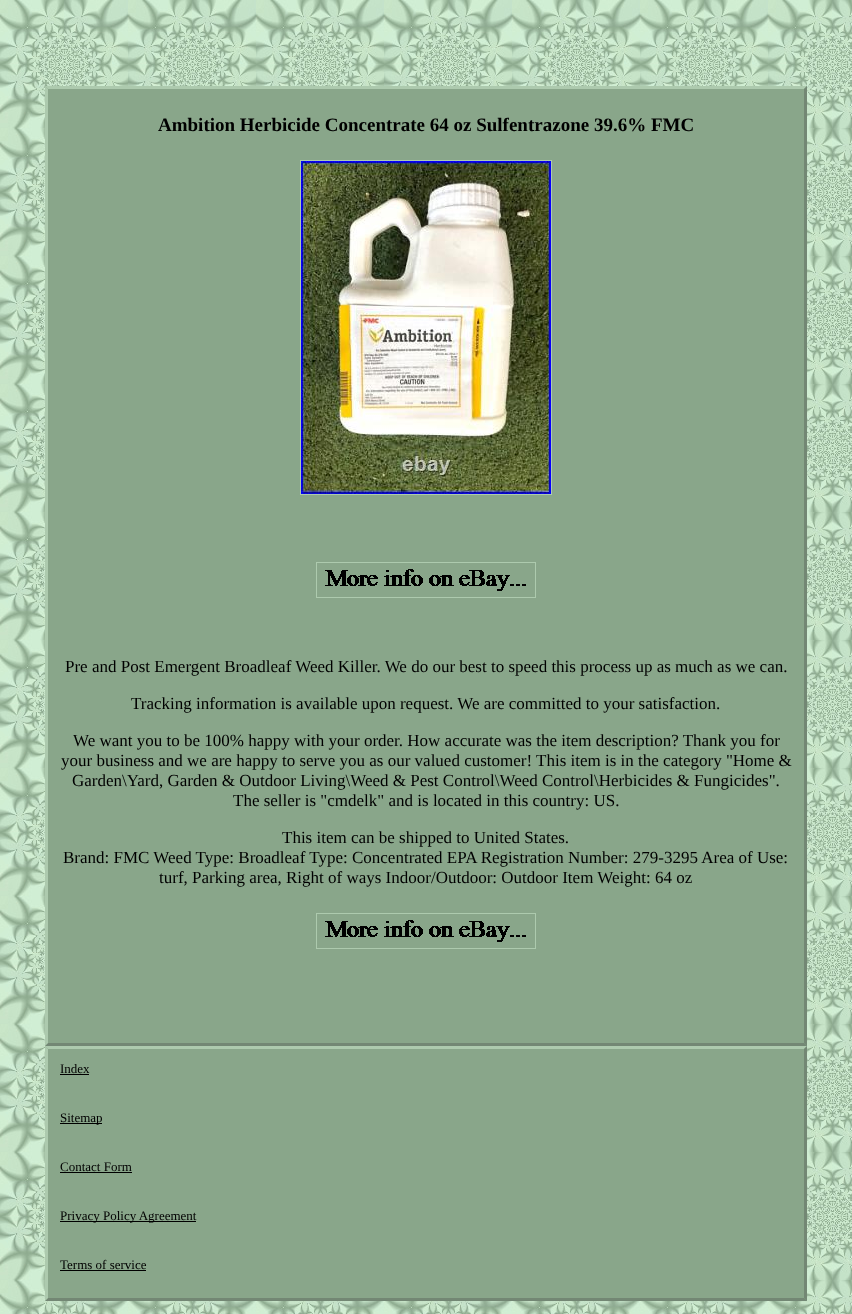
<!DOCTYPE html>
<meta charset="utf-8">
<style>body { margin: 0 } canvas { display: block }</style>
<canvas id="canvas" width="852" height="1314"></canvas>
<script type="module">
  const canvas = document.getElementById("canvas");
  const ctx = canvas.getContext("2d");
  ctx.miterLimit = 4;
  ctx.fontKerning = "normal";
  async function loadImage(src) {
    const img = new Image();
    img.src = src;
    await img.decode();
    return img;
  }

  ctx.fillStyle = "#ffffff";
  ctx.fillRect(0, 0, 852, 1314);
  ctx.drawImage(await loadImage("img1.png"), 0, 0, 852, 1314);
  ctx.fillStyle = "#89a68a";
  ctx.fillRect(45, 86, 762, 1215);
  ctx.fillStyle = "#adcaae";
  ctx.beginPath();
  ctx.moveTo(45, 86);
  ctx.lineTo(807, 86);
  ctx.lineTo(804, 89);
  ctx.lineTo(48, 89);
  ctx.closePath();
  ctx.fill();
  ctx.fillStyle = "#738774";
  ctx.beginPath();
  ctx.moveTo(807, 86);
  ctx.lineTo(807, 1046);
  ctx.lineTo(804, 1043);
  ctx.lineTo(804, 89);
  ctx.closePath();
  ctx.fill();
  ctx.beginPath();
  ctx.moveTo(807, 1046);
  ctx.lineTo(45, 1046);
  ctx.lineTo(48, 1043);
  ctx.lineTo(804, 1043);
  ctx.closePath();
  ctx.fill();
  ctx.fillStyle = "#adcaae";
  ctx.beginPath();
  ctx.moveTo(45, 1046);
  ctx.lineTo(45, 86);
  ctx.lineTo(48, 89);
  ctx.lineTo(48, 1043);
  ctx.closePath();
  ctx.fill();
  ctx.font = "bold 19px Liberation Serif";
  ctx.fillStyle = "#000000";
  ctx.fillText("Ambition Herbicide Concentrate 64 oz Sulfentrazone 39.6% FMC", 158, 131);
  ctx.strokeStyle = "#adcaae";
  ctx.strokeRect(300.5, 160.5, 251, 334);
  ctx.drawImage(await loadImage("img2.png"), 301, 161, 250, 333);
  ctx.strokeRect(316.5, 562.5, 219, 35);
  ctx.drawImage(await loadImage("img3.png"), 325, 569, 201, 22);
  ctx.font = "17px Liberation Serif";
  ctx.fillText("Pre and Post Emergent Broadleaf Weed Killer. We do our best to speed this process up as much as we can.", 65, 672);
  ctx.fillText("Tracking information is available upon request. We are committed to your satisfaction.", 131, 709);
  ctx.fillText("We want you to be 100% happy with your order. How accurate was the item description? Thank you for", 73, 746);
  ctx.fillText("your business and we are happy to serve you as our valued customer! This item is in the category \"Home &", 61, 766);
  ctx.fillText("Garden\\Yard, Garden & Outdoor Living\\Weed & Pest Control\\Weed Control\\Herbicides & Fungicides\".", 72, 786);
  ctx.fillText("The seller is \"cmdelk\" and is located in this country: US.", 233, 806);
  ctx.fillText("This item can be shipped to United States.", 282, 843);
  ctx.fillText("Brand: FMC Weed Type: Broadleaf Type: Concentrated EPA Registration Number: 279-3295 Area of Use:", 63, 863);
  ctx.fillText("turf, Parking area, Right of ways Indoor/Outdoor: Outdoor Item Weight: 64 oz", 159, 883);
  ctx.strokeRect(316.5, 913.5, 219, 35);
  ctx.drawImage(await loadImage("img3.png"), 325, 920, 201, 22);
  ctx.fillStyle = "#adcaae";
  ctx.beginPath();
  ctx.moveTo(45, 1046);
  ctx.lineTo(807, 1046);
  ctx.lineTo(804, 1049);
  ctx.lineTo(48, 1049);
  ctx.closePath();
  ctx.fill();
  ctx.fillStyle = "#738774";
  ctx.beginPath();
  ctx.moveTo(807, 1046);
  ctx.lineTo(807, 1301);
  ctx.lineTo(804, 1298);
  ctx.lineTo(804, 1049);
  ctx.closePath();
  ctx.fill();
  ctx.beginPath();
  ctx.moveTo(807, 1301);
  ctx.lineTo(45, 1301);
  ctx.lineTo(48, 1298);
  ctx.lineTo(804, 1298);
  ctx.closePath();
  ctx.fill();
  ctx.fillStyle = "#adcaae";
  ctx.beginPath();
  ctx.moveTo(45, 1301);
  ctx.lineTo(45, 1046);
  ctx.lineTo(48, 1049);
  ctx.lineTo(48, 1298);
  ctx.closePath();
  ctx.fill();
  ctx.font = "13px Liberation Serif";
  ctx.fillStyle = "#000000";
  ctx.fillText("Index", 60, 1073);
  ctx.fillRect(60, 1074, 29, 1);
  ctx.fillRect(60, 1123, 42, 1);
  ctx.fillText("Sitemap", 60, 1122);
  ctx.fillText("Contact Form", 60, 1171);
  ctx.fillRect(60, 1172, 72, 1);
  ctx.fillRect(60, 1221, 136, 1);
  ctx.fillText("Privacy Policy Agreement", 60, 1220);
  ctx.fillText("Terms of service", 60, 1269);
  ctx.fillRect(60, 1270, 86, 1);
</script>
